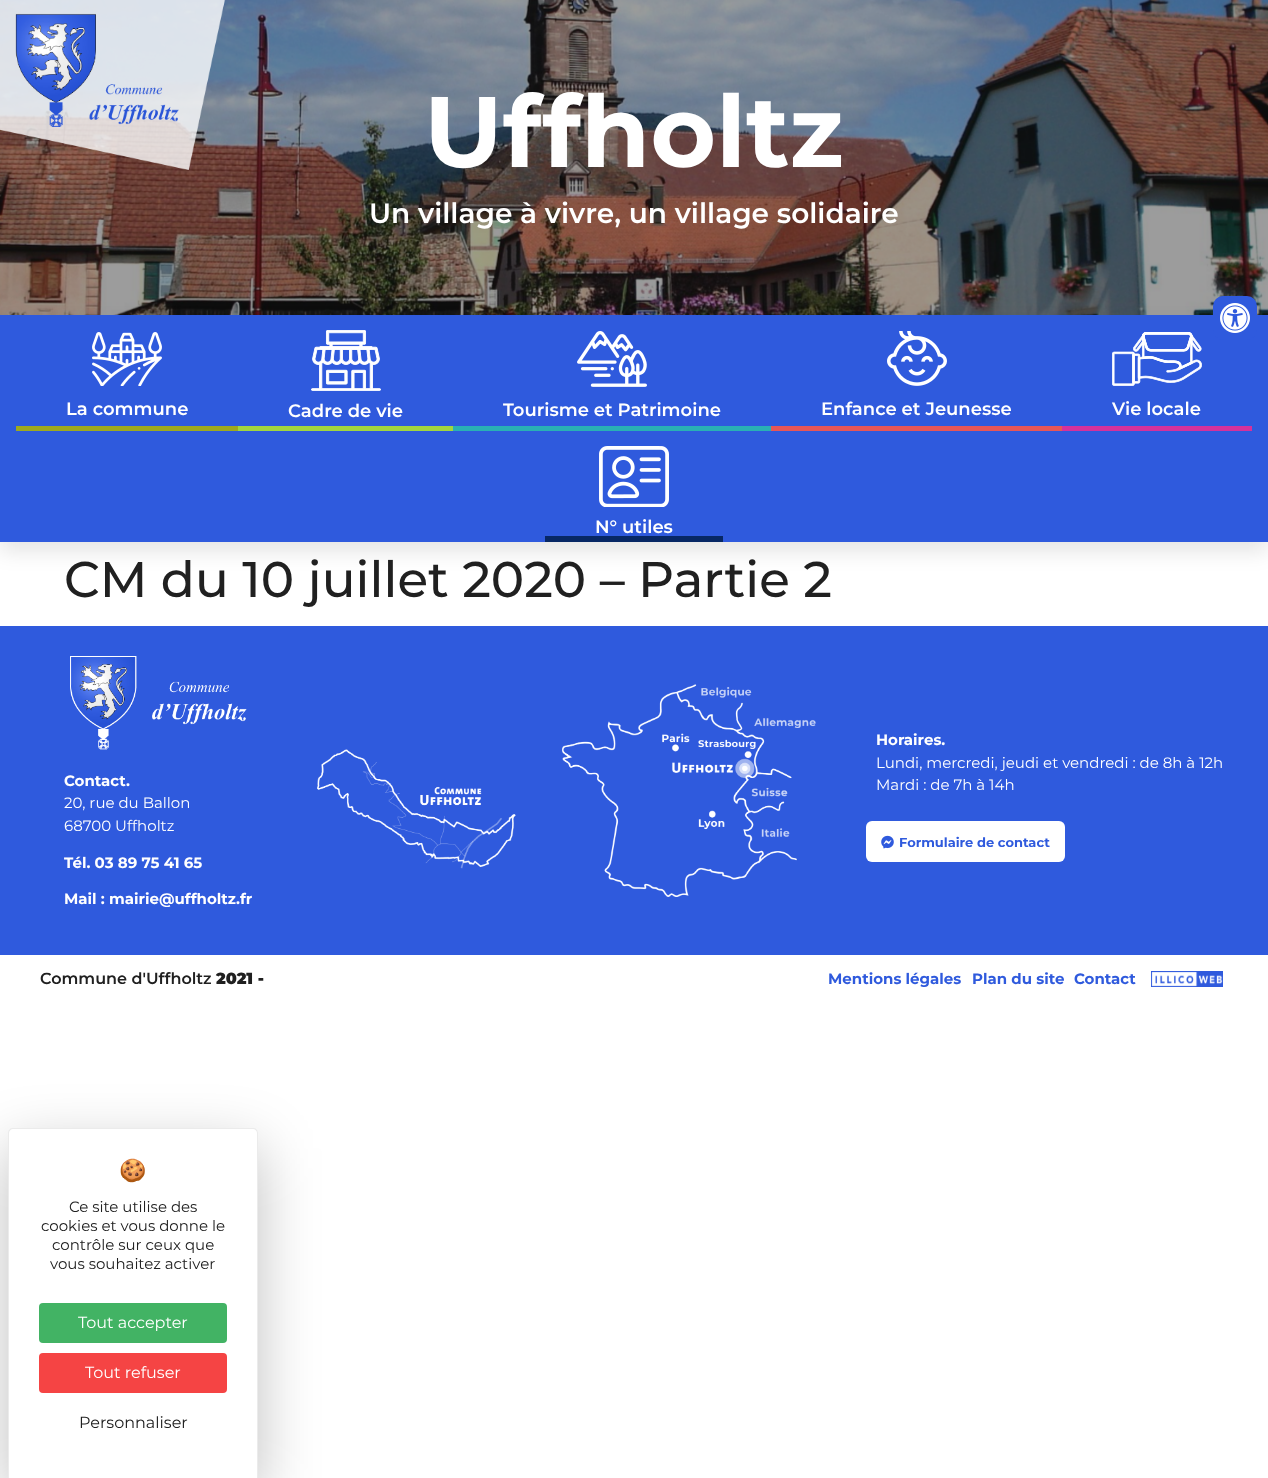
<!DOCTYPE html>
<meta charset="utf-8">
<style>body { margin: 0 } canvas { display: block }</style>
<canvas id="canvas" width="1268" height="1478"></canvas>
<script type="module">
  const canvas = document.getElementById("canvas");
  const ctx = canvas.getContext("2d");
  ctx.miterLimit = 4;
  ctx.fontKerning = "normal";
  async function loadImage(src) {
    const img = new Image();
    img.src = src;
    await img.decode();
    return img;
  }

  ctx.fillStyle = "#ffffff";
  ctx.fillRect(0, 0, 1268, 1478);
  ctx.drawImage(await loadImage("img2.png"), 0, 0, 1268, 315);
  ctx.drawImage(await loadImage("img1.png"), 0, 0, 226, 170);
  ctx.font = "bold 100px Montserrat";
  ctx.fillText("Uffholtz", 424, 167);
  ctx.font = "600 28px Montserrat";
  ctx.fillText("Un village à vivre, un village solidaire", 369, 223);
  ctx.fillStyle = "rgba(0, 0, 0, 0.1)";
  ctx.filter = "blur(10px)";
  ctx.beginPath();
  ctx.rect(0, 325, 1268, 227);
  ctx.fill();
  ctx.filter = "none";
  ctx.fillStyle = "#2f5add";
  ctx.fillRect(0, 315, 1268, 227);
  ctx.fillStyle = "#9ea91e";
  ctx.fillRect(16, 426, 222, 5);
  ctx.drawImage(await loadImage("img3.png"), 92, 332, 70, 54);
  ctx.font = "600 18px Montserrat";
  ctx.fillStyle = "#ffffff";
  ctx.fillText("La commune", 66, 415);
  ctx.fillStyle = "#a2d63f";
  ctx.fillRect(238, 426, 215, 5);
  ctx.drawImage(await loadImage("img4.png"), 311, 330, 70, 61);
  ctx.fillStyle = "#ffffff";
  ctx.fillText("Cadre de vie", 288, 417);
  ctx.fillStyle = "#29b1b4";
  ctx.fillRect(453, 426, 318, 5);
  ctx.drawImage(await loadImage("img5.png"), 577, 331, 70, 56);
  ctx.fillStyle = "#ffffff";
  ctx.fillText("Tourisme et Patrimoine", 503, 416);
  ctx.fillStyle = "#e75657";
  ctx.fillRect(771, 426, 291, 5);
  ctx.drawImage(await loadImage("img6.png"), 887, 331, 60, 55);
  ctx.fillStyle = "#ffffff";
  ctx.fillText("Enfance et Jeunesse", 821, 415);
  ctx.fillStyle = "#d6319b";
  ctx.fillRect(1062, 426, 190, 5);
  ctx.drawImage(await loadImage("img7.png"), 1112, 332, 90, 54);
  ctx.fillStyle = "#ffffff";
  ctx.fillText("Vie locale", 1112, 415);
  ctx.drawImage(await loadImage("img8.png"), 599, 446, 70, 61);
  ctx.fillText("N° utiles", 595, 533);
  ctx.fillStyle = "#072764";
  ctx.fillRect(545, 536, 178, 6);
  ctx.font = "500 50px Montserrat";
  ctx.fillStyle = "#202020";
  ctx.fillText("CM du 10 juillet 2020 – Partie 2", 64, 597);
  ctx.fillStyle = "#2f5add";
  ctx.fillRect(0, 626, 1268, 329);
  ctx.drawImage(await loadImage("img9.png"), 70, 656, 177, 94);
  ctx.font = "bold 15px Montserrat";
  ctx.fillStyle = "#ffffff";
  ctx.fillText("Contact.", 64, 786);
  ctx.font = "15px Montserrat";
  ctx.fillText("20, rue du Ballon", 64, 808);
  ctx.fillText("68700 Uffholtz", 64, 831);
  ctx.font = "bold 15px Montserrat";
  ctx.fillText("Tél. 03 89 75 41 65", 64, 868);
  ctx.fillText("Mail : mairie@uffholtz.fr", 64, 904);
  ctx.drawImage(await loadImage("img10.png"), 317, 684, 499, 213);
  ctx.fillText("Horaires.", 876, 745);
  ctx.font = "15px Montserrat";
  ctx.fillText("Lundi, mercredi, jeudi et vendredi : de 8h à 12h", 876, 768);
  ctx.fillText("Mardi : de 7h à 14h", 876, 790);
  ctx.beginPath();
  ctx.roundRect(866, 821, 199, 41, 6);
  ctx.fill();
  ctx.drawImage(await loadImage("img11.png"), 881, 835, 13, 14);
  ctx.font = "bold 13px Montserrat";
  ctx.fillStyle = "#2f5add";
  ctx.fillText("Formulaire de contact", 899, 847);
  ctx.font = "600 16px Montserrat";
  ctx.fillStyle = "#202020";
  ctx.fillText("Commune d'Uffholtz", 40, 984);
  ctx.font = "900 16px Montserrat";
  ctx.fillText("2021 -", 216, 984);
  ctx.font = "bold 15px Montserrat";
  ctx.fillStyle = "#2f5add";
  ctx.fillText("Mentions légales", 828, 984);
  ctx.fillText("Plan du site", 972, 984);
  ctx.fillText("Contact", 1074, 984);
  ctx.drawImage(await loadImage("img12.png"), 1151, 971, 72, 16);
  ctx.beginPath();
  ctx.roundRect(1213, 296, 44, 44, 10);
  ctx.fill();
  ctx.drawImage(await loadImage("img13.png"), 1220, 303, 30, 30);
  ctx.fillStyle = "rgba(0, 0, 0, 0.25)";
  ctx.filter = "blur(30px)";
  ctx.beginPath();
  ctx.roundRect(8, 1148, 250, 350, 5);
  ctx.fill();
  ctx.filter = "none";
  ctx.fillStyle = "#ffffff";
  ctx.beginPath();
  ctx.roundRect(8, 1128, 250, 350, [5, 5, 0, 0]);
  ctx.fill();
  ctx.fillStyle = "#ebebeb";
  ctx.beginPath();
  ctx.moveTo(13, 1128);
  ctx.lineTo(253, 1128);
  ctx.bezierCurveTo(256, 1128, 258, 1130, 258, 1133);
  ctx.lineTo(258, 1478);
  ctx.lineTo(8, 1478);
  ctx.lineTo(8, 1133);
  ctx.bezierCurveTo(8, 1130, 10, 1128, 13, 1128);
  ctx.closePath();
  ctx.moveTo(13, 1129);
  ctx.lineTo(253, 1129);
  ctx.bezierCurveTo(255, 1129, 257, 1131, 257, 1133);
  ctx.lineTo(257, 1478);
  ctx.lineTo(9, 1478);
  ctx.lineTo(9, 1133);
  ctx.bezierCurveTo(9, 1131, 11, 1129, 13, 1129);
  ctx.closePath();
  ctx.fill("evenodd");
  ctx.font = "22px Noto Color Emoji";
  ctx.fillStyle = "#202020";
  ctx.fillText("🍪", 119, 1178);
  ctx.font = "15px Montserrat";
  ctx.fillText("Ce site utilise des", 69, 1212);
  ctx.fillText("cookies et vous donne le", 41, 1231);
  ctx.fillText("contrôle sur ceux que", 52, 1250);
  ctx.fillText("vous souhaitez activer", 50, 1269);
  ctx.fillStyle = "#42b364";
  ctx.beginPath();
  ctx.roundRect(39, 1303, 188, 40, 4);
  ctx.fill();
  ctx.font = "16px Montserrat";
  ctx.fillStyle = "#ffffff";
  ctx.fillText("Tout accepter", 78, 1328);
  ctx.fillStyle = "#f54444";
  ctx.beginPath();
  ctx.roundRect(39, 1353, 188, 40, 4);
  ctx.fill();
  ctx.fillStyle = "#ffffff";
  ctx.fillText("Tout refuser", 85, 1378);
  ctx.fillStyle = "#202020";
  ctx.fillText("Personnaliser", 79, 1428);
</script>
